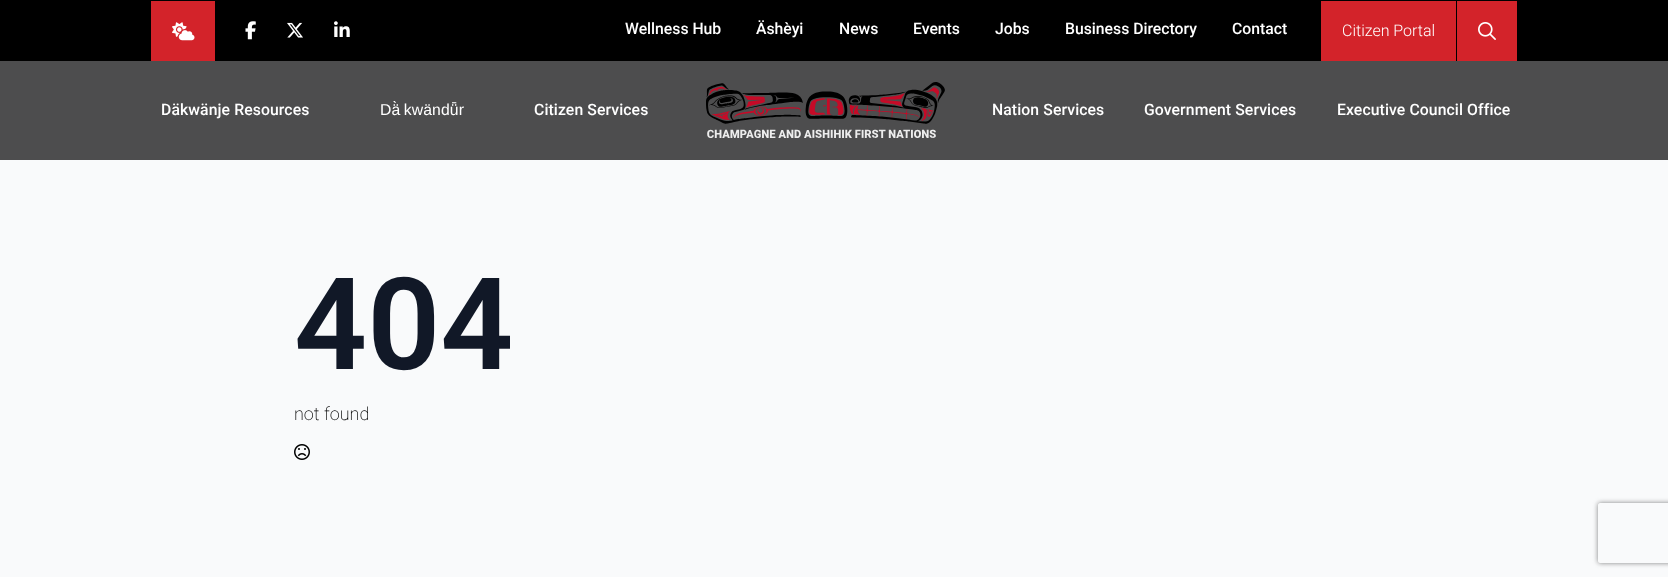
<!DOCTYPE html>
<meta charset="utf-8">
<style>body { margin: 0 } canvas { display: block }</style>
<canvas id="canvas" width="1668" height="577"></canvas>
<script type="module">
  const canvas = document.getElementById("canvas");
  const ctx = canvas.getContext("2d");
  ctx.miterLimit = 4;
  ctx.fontKerning = "normal";
  async function loadImage(src) {
    const img = new Image();
    img.src = src;
    await img.decode();
    return img;
  }

  ctx.fillStyle = "#f9fafb";
  ctx.fillRect(0, 0, 1668, 577);
  ctx.fillStyle = "#000000";
  ctx.fillRect(0, 0, 1668, 61);
  ctx.fillStyle = "#d3232a";
  ctx.fillRect(151, 1, 64, 60);
  ctx.drawImage(await loadImage("img1.png"), 172, 22, 23, 19);
  ctx.drawImage(await loadImage("img2.png"), 245, 21, 11, 19);
  ctx.drawImage(await loadImage("img3.png"), 287, 22, 16, 16);
  ctx.drawImage(await loadImage("img4.png"), 334, 21, 16, 16);
  ctx.font = "500 15.75px Roboto";
  ctx.fillStyle = "#ffffff";
  ctx.fillText("Wellness Hub", 625, 34);
  ctx.fillText("Äshèyi", 756, 34);
  ctx.fillText("News", 839, 34);
  ctx.fillText("Events", 913, 34);
  ctx.fillText("Jobs", 995, 34);
  ctx.fillText("Business Directory", 1065, 34);
  ctx.fillText("Contact", 1232, 34);
  ctx.fillStyle = "#d3232a";
  ctx.fillRect(1321, 1, 135, 60);
  ctx.font = "300 16px Roboto";
  ctx.fillStyle = "#ffffff";
  ctx.fillText("Citizen Portal", 1342, 36);
  ctx.fillStyle = "#d3232a";
  ctx.fillRect(1457, 1, 60, 60);
  ctx.drawImage(await loadImage("img5.png"), 1478, 22, 18, 18);
  ctx.fillStyle = "#4d4d4e";
  ctx.fillRect(0, 61, 1668, 99);
  ctx.letterSpacing = "0.1px";
  ctx.font = "500 15.75px Roboto";
  ctx.fillStyle = "#ffffff";
  ctx.fillText("Däkwänje Resources", 161, 115);
  ctx.wordSpacing = "-1px";
  ctx.font = "15.75px Liberation Sans";
  ctx.fillText("Dä̀ kwändǖr", 380, 115);
  ctx.wordSpacing = "0px";
  ctx.font = "500 15.75px Roboto";
  ctx.fillText("Citizen Services", 534, 115);
  ctx.drawImage(await loadImage("img6.png"), 706, 82, 239, 56);
  ctx.fillText("Nation Services", 992, 115);
  ctx.fillText("Government Services", 1144, 115);
  ctx.fillText("Executive Council Office", 1337, 115);
  ctx.letterSpacing = "0px";
  ctx.font = "600 128px Roboto";
  ctx.fillStyle = "#111827";
  ctx.fillText("404", 294, 369);
  ctx.font = "200 18px Roboto";
  ctx.fillStyle = "#000000";
  ctx.fillText("not found", 294, 420);
  ctx.drawImage(await loadImage("img7.png"), 294, 444, 16, 16);
  ctx.save();
  ctx.beginPath();
  ctx.moveTo(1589, 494);
  ctx.lineTo(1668, 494);
  ctx.lineTo(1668, 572);
  ctx.lineTo(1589, 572);
  ctx.closePath();
  ctx.moveTo(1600, 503);
  ctx.lineTo(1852, 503);
  ctx.bezierCurveTo(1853, 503, 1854, 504, 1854, 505);
  ctx.lineTo(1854, 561);
  ctx.bezierCurveTo(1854, 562, 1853, 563, 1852, 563);
  ctx.lineTo(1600, 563);
  ctx.bezierCurveTo(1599, 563, 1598, 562, 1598, 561);
  ctx.lineTo(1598, 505);
  ctx.bezierCurveTo(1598, 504, 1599, 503, 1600, 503);
  ctx.closePath();
  ctx.clip("evenodd");
  ctx.fillStyle = "#808080";
  ctx.filter = "blur(2.5px)";
  ctx.beginPath();
  ctx.roundRect(1598, 503, 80, 60, 2);
  ctx.fill();
  ctx.filter = "none";
  ctx.restore();
</script>
